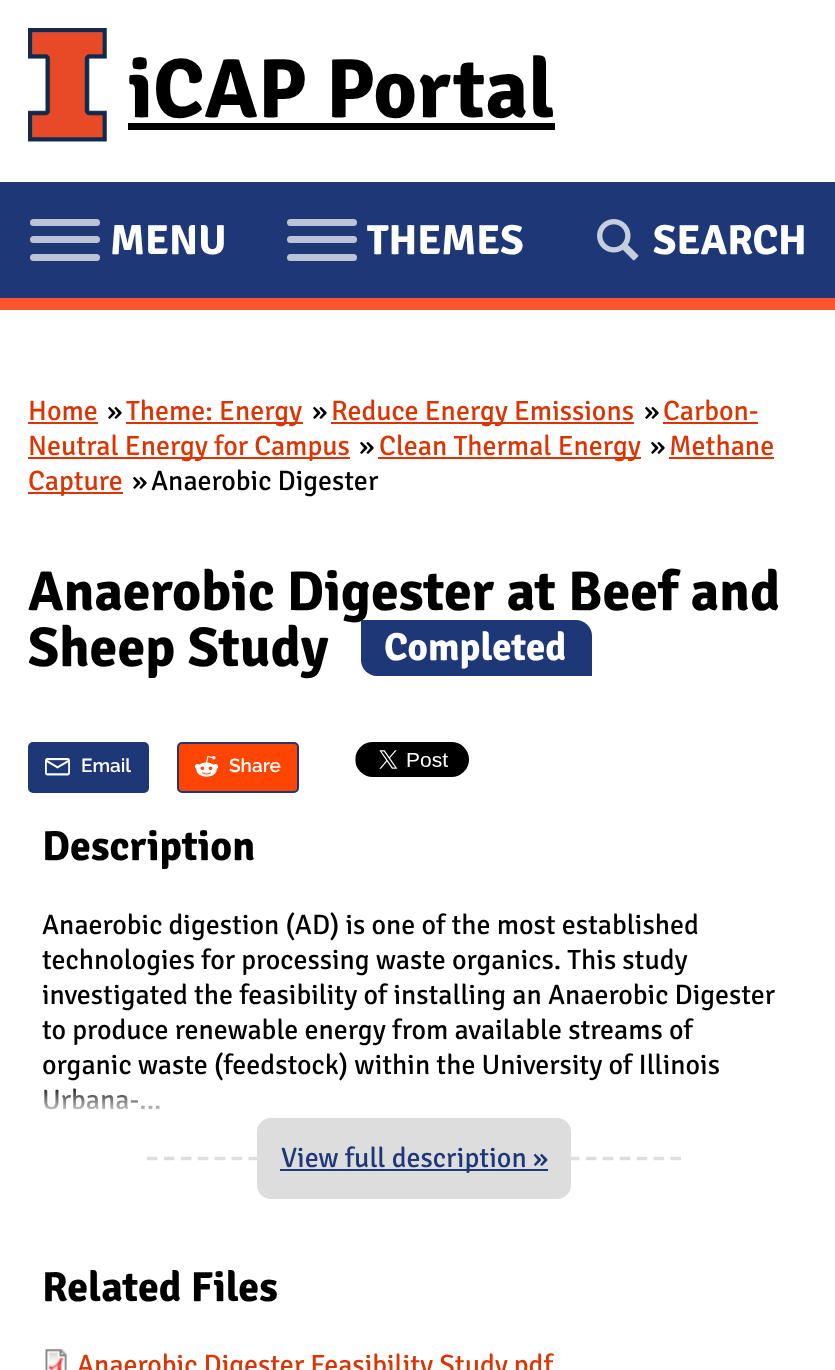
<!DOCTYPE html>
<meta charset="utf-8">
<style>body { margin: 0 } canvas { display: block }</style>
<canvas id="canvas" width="835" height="1370"></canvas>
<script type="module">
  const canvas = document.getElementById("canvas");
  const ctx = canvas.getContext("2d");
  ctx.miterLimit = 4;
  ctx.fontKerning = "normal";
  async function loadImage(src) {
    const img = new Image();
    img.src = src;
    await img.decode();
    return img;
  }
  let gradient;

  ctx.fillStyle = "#ffffff";
  ctx.fillRect(0, 0, 835, 1370);
  ctx.drawImage(await loadImage("img1.png"), 28, 28, 79, 114);
  ctx.font = "bold 84px Signika";
  ctx.fillStyle = "#000000";
  ctx.fillText("iCAP Portal", 128, 117);
  ctx.fillRect(128, 123, 427, 7);
  ctx.fillStyle = "#ff552e";
  ctx.fillRect(0, 298, 835, 12);
  ctx.fillStyle = "#1e3877";
  ctx.fillRect(0, 182, 835, 116);
  ctx.fillStyle = "#bcc3d6";
  ctx.beginPath();
  ctx.roundRect(30, 254, 70, 7, 3.5);
  ctx.fill();
  ctx.beginPath();
  ctx.roundRect(30, 219, 70, 7, 3.5);
  ctx.fill();
  ctx.beginPath();
  ctx.roundRect(30, 236, 70, 7, 3.5);
  ctx.fill();
  ctx.font = "bold 42px Signika";
  ctx.fillStyle = "#ffffff";
  ctx.fillText("MENU", 110, 254);
  ctx.fillStyle = "#bcc3d6";
  ctx.beginPath();
  ctx.roundRect(287, 254, 70, 7, 3.5);
  ctx.fill();
  ctx.beginPath();
  ctx.roundRect(287, 219, 70, 7, 3.5);
  ctx.fill();
  ctx.beginPath();
  ctx.roundRect(287, 236, 70, 7, 3.5);
  ctx.fill();
  ctx.fillStyle = "#ffffff";
  ctx.fillText("THEMES", 367, 254);
  ctx.drawImage(await loadImage("img2.png"), 597, 219, 42, 42);
  ctx.fillText("SEARCH", 653, 254);
  ctx.font = "28px Signika";
  ctx.fillStyle = "#dd3403";
  ctx.fillText("Home", 28, 420);
  ctx.fillRect(28, 422, 70, 2);
  ctx.fillStyle = "#000000";
  ctx.fillText("»", 107, 420);
  ctx.fillStyle = "#dd3403";
  ctx.fillRect(126, 422, 177, 2);
  ctx.fillText("Theme: Energy", 126, 420);
  ctx.fillStyle = "#000000";
  ctx.fillText("»", 312, 420);
  ctx.fillStyle = "#dd3403";
  ctx.fillRect(331, 422, 303, 2);
  ctx.fillText("Reduce Energy Emissions", 331, 420);
  ctx.fillStyle = "#000000";
  ctx.fillText("»", 644, 420);
  ctx.fillStyle = "#dd3403";
  ctx.fillRect(663, 422, 95, 2);
  ctx.fillText("Carbon-", 663, 420);
  ctx.fillRect(28, 457, 322, 2);
  ctx.fillText("Neutral Energy for Campus", 28, 455);
  ctx.fillStyle = "#000000";
  ctx.fillText("»", 359, 455);
  ctx.fillStyle = "#dd3403";
  ctx.fillRect(378, 457, 263, 2);
  ctx.fillText("Clean Thermal Energy", 379, 455);
  ctx.fillStyle = "#000000";
  ctx.fillText("»", 650, 455);
  ctx.fillStyle = "#dd3403";
  ctx.fillRect(669, 457, 105, 2);
  ctx.fillText("Methane", 669, 455);
  ctx.fillRect(28, 492, 95, 2);
  ctx.fillText("Capture", 28, 490);
  ctx.fillStyle = "#000000";
  ctx.fillText("»", 132, 490);
  ctx.fillText("Anaerobic Digester", 151, 490);
  ctx.font = "bold 56px Signika";
  ctx.fillText("Anaerobic Digester at Beef and", 28, 610);
  ctx.fillText("Sheep Study", 28, 666);
  ctx.fillStyle = "#1e3877";
  ctx.beginPath();
  ctx.roundRect(361, 620, 231, 56, [0, 16, 0, 16]);
  ctx.fill();
  ctx.font = "bold 39px Signika";
  ctx.fillStyle = "#ffffff";
  ctx.fillText("Completed", 384, 660);
  ctx.fillStyle = "#1e3877";
  ctx.beginPath();
  ctx.roundRect(29, 743, 119, 49, 4);
  ctx.fill();
  ctx.strokeStyle = "#1e3877";
  ctx.lineWidth = 2;
  ctx.stroke();
  ctx.drawImage(await loadImage("img3.png"), 45, 758, 25, 18);
  ctx.font = "600 19px Raleway";
  ctx.fillStyle = "#ffffff";
  ctx.fillText("Email", 81, 772);
  ctx.fillStyle = "#ff4500";
  ctx.beginPath();
  ctx.roundRect(178, 743, 120, 49, 4);
  ctx.fill();
  ctx.stroke();
  ctx.drawImage(await loadImage("img4.png"), 194, 756, 25, 21);
  ctx.fillStyle = "#ffffff";
  ctx.fillText("Share", 229, 772);
  ctx.drawImage(await loadImage("img5.png"), 355, 742, 114, 35);
  ctx.font = "bold 42px Signika";
  ctx.fillStyle = "#000000";
  ctx.fillText("Description", 42, 860);
  ctx.font = "28px Signika";
  ctx.fillText("Anaerobic digestion (AD) is one of the most established", 42, 934);
  ctx.fillText("technologies for processing waste organics. This study", 42, 969);
  ctx.fillText("investigated the feasibility of installing an Anaerobic Digester", 42, 1004);
  ctx.fillText("to produce renewable energy from available streams of", 42, 1039);
  ctx.fillText("organic waste (feedstock) within the University of Illinois", 42, 1074);
  ctx.fillText("Urbana-...", 42, 1109);
  gradient = ctx.createLinearGradient(415, 1083, 415, 1139);
  gradient.addColorStop(0, "rgba(255, 255, 255, 0)");
  gradient.addColorStop(0.5, "rgba(255, 255, 255, 0.8)");
  gradient.addColorStop(1, "#ffffff");
  ctx.fillStyle = gradient;
  ctx.fillRect(44, 1088, 116, 22);
  ctx.fillStyle = "#dddddd";
  ctx.beginPath();
  ctx.roundRect(258, 1119, 312, 79, 13);
  ctx.fill();
  ctx.strokeStyle = "#dddddd";
  ctx.stroke();
  ctx.beginPath();
  ctx.moveTo(147, 1158.5);
  ctx.lineTo(259, 1158.5);
  ctx.lineWidth = 3.5;
  ctx.setLineDash([10.5, 6.42]);
  ctx.stroke();
  ctx.fillStyle = "#1e3877";
  ctx.fillRect(280, 1169, 268, 2);
  ctx.fillText("View full description »", 281, 1167);
  ctx.beginPath();
  ctx.moveTo(569, 1158.5);
  ctx.lineTo(681, 1158.5);
  ctx.stroke();
  ctx.font = "bold 42px Signika";
  ctx.fillStyle = "#000000";
  ctx.fillText("Related Files", 42, 1301);
  ctx.drawImage(await loadImage("img6.png"), 45, 1349, 22, 21);
  ctx.font = "28px Signika";
  ctx.fillStyle = "#dd3403";
  ctx.fillText("Anaerobic Digester Feasibility Study.pdf", 77, 1374);
</script>
